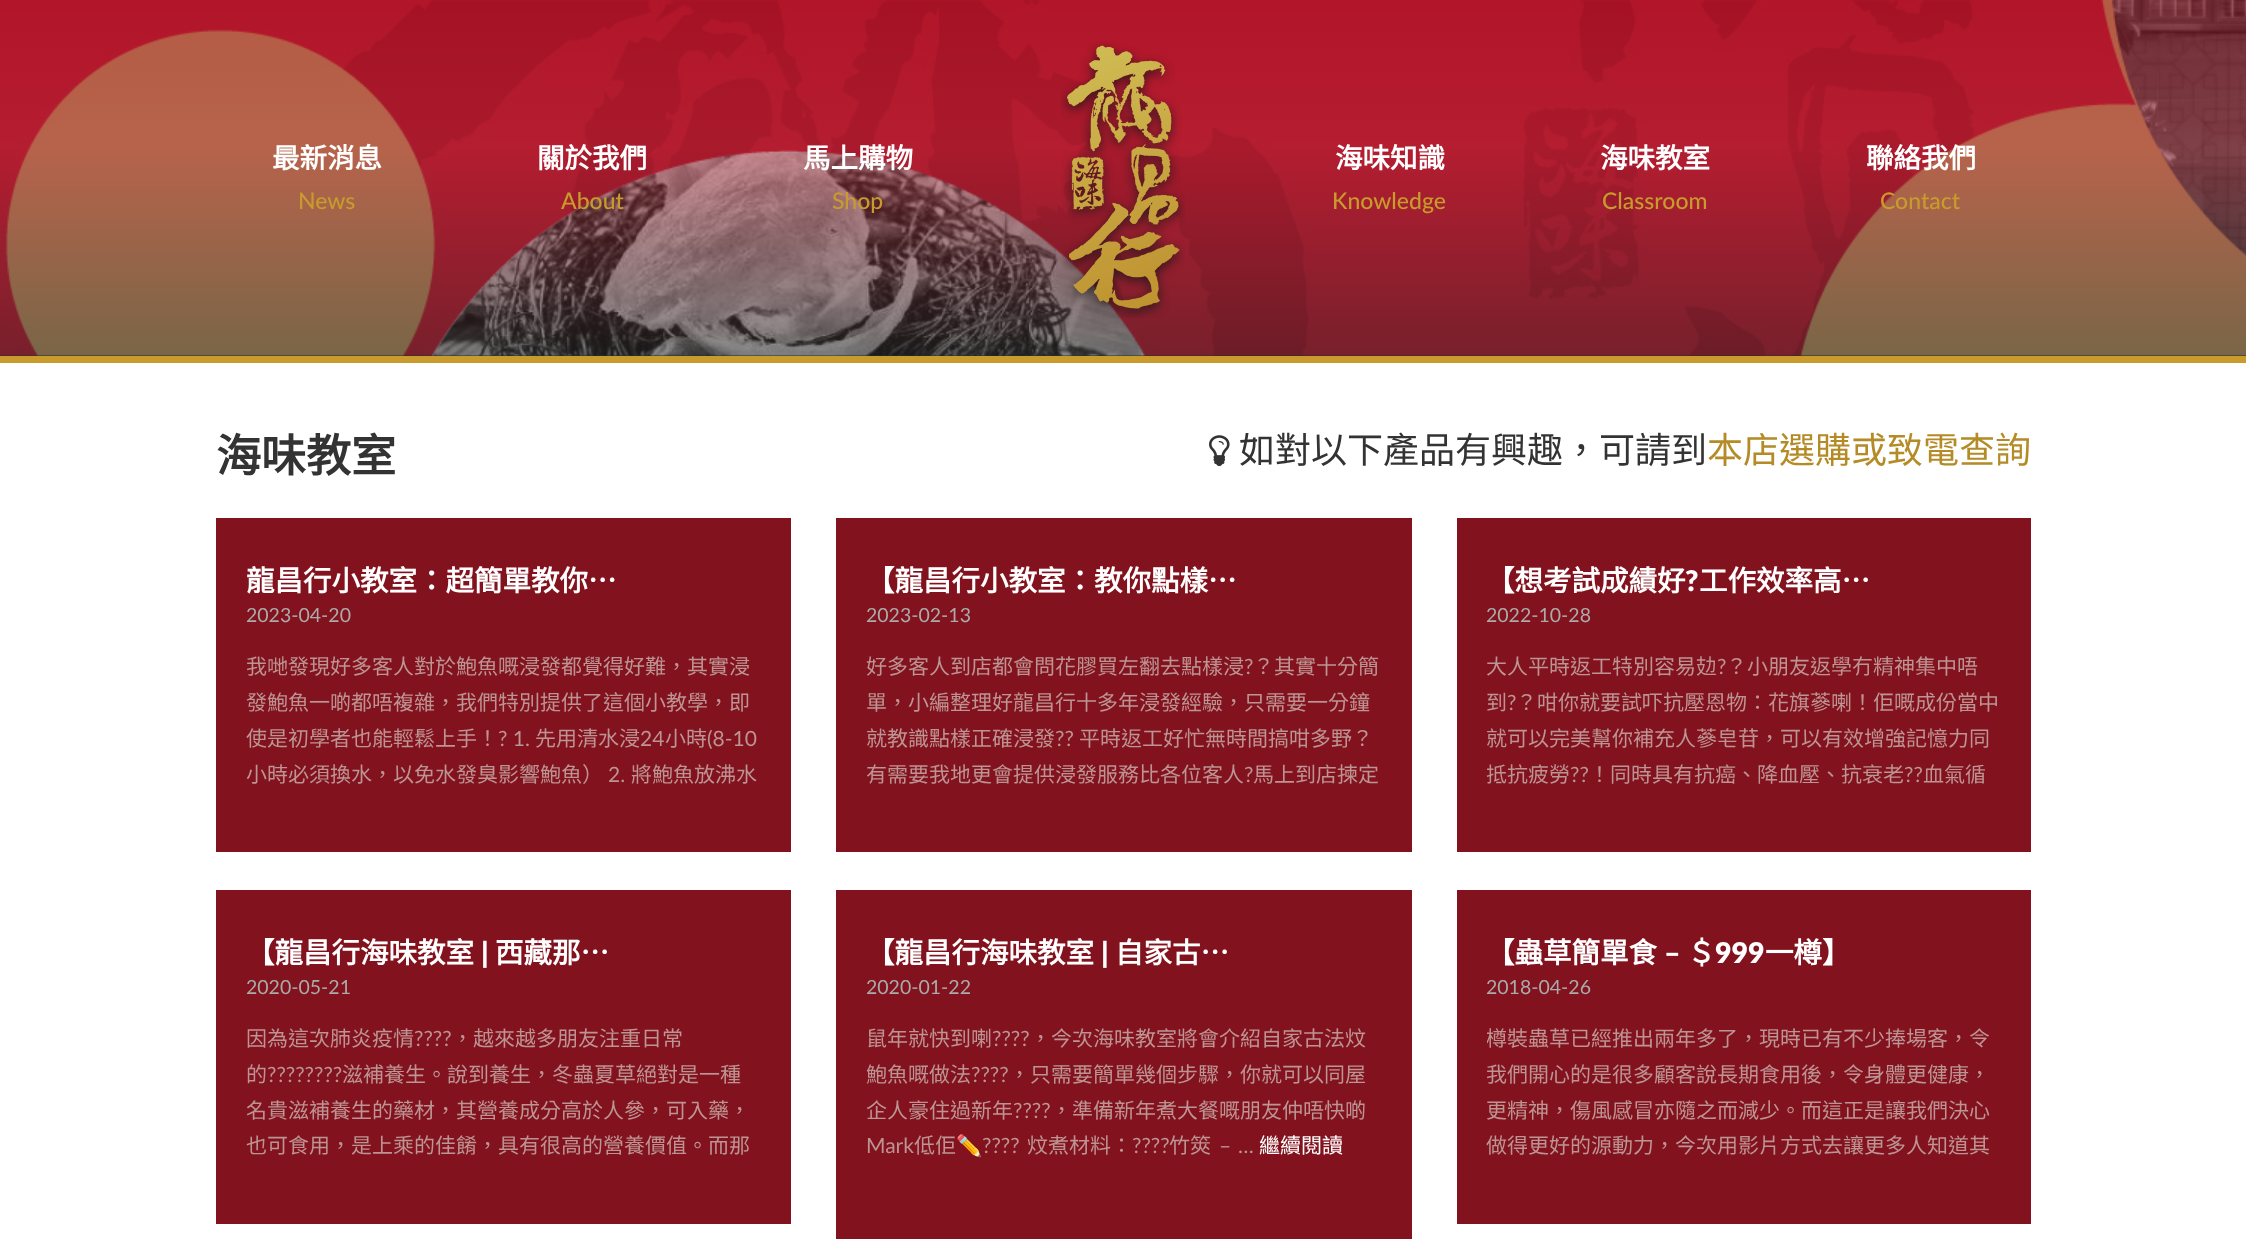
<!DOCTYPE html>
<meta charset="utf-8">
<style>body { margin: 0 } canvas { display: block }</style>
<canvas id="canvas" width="2246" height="1248"></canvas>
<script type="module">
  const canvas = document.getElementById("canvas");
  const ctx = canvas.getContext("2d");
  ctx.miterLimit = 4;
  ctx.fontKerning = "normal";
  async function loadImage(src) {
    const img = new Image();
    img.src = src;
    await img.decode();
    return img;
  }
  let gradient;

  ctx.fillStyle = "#ffffff";
  ctx.fillRect(0, 0, 2246, 1248);
  gradient = ctx.createLinearGradient(1124, 0, 1124, 356);
  gradient.addColorStop(0, "#a01626");
  gradient.addColorStop(0.41, "#a72635");
  gradient.addColorStop(1, "#2c2c2c");
  ctx.fillStyle = gradient;
  ctx.fillRect(0, 0, 2246, 356);
  ctx.fillStyle = "#c89b2c";
  ctx.fillRect(0, 356, 2246, 7);
  ctx.drawImage(await loadImage("img1.png"), 0, 0, 2246, 356);
  ctx.font = "bold 27.5px Noto Sans CJK TC";
  ctx.fillStyle = "#ffffff";
  ctx.fillText("最新消息", 272, 168);
  ctx.font = "500 23px Lato";
  ctx.fillStyle = "#c89b2c";
  ctx.fillText("News", 298, 209);
  ctx.font = "bold 27.5px Noto Sans CJK TC";
  ctx.fillStyle = "#ffffff";
  ctx.fillText("關於我們", 537, 168);
  ctx.font = "500 23px Lato";
  ctx.fillStyle = "#c89b2c";
  ctx.fillText("About", 561, 209);
  ctx.font = "bold 27.5px Noto Sans CJK TC";
  ctx.fillStyle = "#ffffff";
  ctx.fillText("馬上購物", 803, 168);
  ctx.font = "500 23px Lato";
  ctx.fillStyle = "#c89b2c";
  ctx.fillText("Shop", 832, 209);
  ctx.drawImage(await loadImage("img2.png"), 1061, 41, 124, 277);
  ctx.font = "bold 27.5px Noto Sans CJK TC";
  ctx.fillStyle = "#ffffff";
  ctx.fillText("海味知識", 1335, 168);
  ctx.font = "500 23px Lato";
  ctx.fillStyle = "#c89b2c";
  ctx.fillText("Knowledge", 1332, 209);
  ctx.font = "bold 27.5px Noto Sans CJK TC";
  ctx.fillStyle = "#ffffff";
  ctx.fillText("海味教室", 1600, 168);
  ctx.font = "500 23px Lato";
  ctx.fillStyle = "#c89b2c";
  ctx.fillText("Classroom", 1602, 209);
  ctx.font = "bold 27.5px Noto Sans CJK TC";
  ctx.fillStyle = "#ffffff";
  ctx.fillText("聯絡我們", 1866, 168);
  ctx.font = "500 23px Lato";
  ctx.fillStyle = "#c89b2c";
  ctx.fillText("Contact", 1880, 209);
  ctx.font = "bold 45px Noto Sans CJK TC";
  ctx.fillStyle = "#333333";
  ctx.fillText("海味教室", 216, 472);
  ctx.drawImage(await loadImage("img3.png"), 1209, 435, 21, 32);
  ctx.font = "36px Noto Sans CJK TC";
  ctx.fillText("如對以下產品有興趣，可請到", 1239, 463);
  ctx.fillStyle = "#b48b26";
  ctx.fillText("本店選購或致電查詢", 1707, 463);
  ctx.fillStyle = "#82121d";
  ctx.fillRect(216, 518, 575, 334);
  ctx.font = "bold 28.5px Noto Sans CJK TC";
  ctx.fillStyle = "#ffffff";
  ctx.fillText("龍昌行小教室：超簡單教你…", 246, 591);
  ctx.font = "19.5px Lato";
  ctx.fillStyle = "#ababab";
  ctx.fillText("2023-04-20", 246, 622);
  ctx.font = "21px Noto Sans CJK TC";
  ctx.fillStyle = "#bd9393";
  ctx.fillText("我哋發現好多客人對於鮑魚嘅浸發都覺得好難，其實浸", 246, 674);
  ctx.fillText("發鮑魚一啲都唔複雜，我們特別提供了這個小教學，即", 246, 710);
  ctx.fillText("使是初學者也能輕鬆上手！", 246, 746);
  ctx.font = "21px Lato";
  ctx.fillText("? 1.", 498, 746);
  ctx.font = "21px Noto Sans CJK TC";
  ctx.fillText("先用清水浸", 535, 746);
  ctx.font = "21px Lato";
  ctx.fillText("24", 640, 746);
  ctx.font = "21px Noto Sans CJK TC";
  ctx.fillText("小時", 665, 746);
  ctx.font = "21px Lato";
  ctx.fillText("(8-10", 707, 746);
  ctx.font = "21px Noto Sans CJK TC";
  ctx.fillText("小時必須換水，以免水發臭影響鮑魚）", 246, 782);
  ctx.font = "21px Lato";
  ctx.fillText("2.", 608, 782);
  ctx.font = "21px Noto Sans CJK TC";
  ctx.fillText("將鮑魚放沸水", 631, 782);
  ctx.fillStyle = "#82121d";
  ctx.fillRect(836, 518, 576, 334);
  ctx.font = "bold 28.5px Noto Sans CJK TC";
  ctx.fillStyle = "#ffffff";
  ctx.fillText("【龍昌行小教室：教你點樣…", 866, 591);
  ctx.font = "19.5px Lato";
  ctx.fillStyle = "#ababab";
  ctx.fillText("2023-02-13", 866, 622);
  ctx.font = "21px Noto Sans CJK TC";
  ctx.fillStyle = "#bd9393";
  ctx.fillText("好多客人到店都會問花膠買左翻去點樣浸", 866, 674);
  ctx.font = "21px Lato";
  ctx.fillText("?", 1244, 674);
  ctx.font = "21px Noto Sans CJK TC";
  ctx.fillText("？其實十分簡", 1253, 674);
  ctx.fillText("單，小編整理好龍昌行十多年浸發經驗，只需要一分鐘", 866, 710);
  ctx.fillText("就教識點樣正確浸發", 866, 746);
  ctx.font = "21px Lato";
  ctx.fillText("??", 1055, 746);
  ctx.font = "21px Noto Sans CJK TC";
  ctx.fillText("平時返工好忙無時間搞咁多野？", 1079, 746);
  ctx.fillText("有需要我地更會提供浸發服務比各位客人", 866, 782);
  ctx.font = "21px Lato";
  ctx.fillText("?", 1244, 782);
  ctx.font = "21px Noto Sans CJK TC";
  ctx.fillText("馬上到店揀定", 1253, 782);
  ctx.fillStyle = "#82121d";
  ctx.fillRect(1457, 518, 574, 334);
  ctx.font = "bold 28.5px Noto Sans CJK TC";
  ctx.fillStyle = "#ffffff";
  ctx.fillText("【想考試成績好", 1486, 591);
  ctx.font = "800 28.5px Lato";
  ctx.fillText("?", 1685, 591);
  ctx.font = "bold 28.5px Noto Sans CJK TC";
  ctx.fillText("工作效率高…", 1699, 591);
  ctx.font = "19.5px Lato";
  ctx.fillStyle = "#ababab";
  ctx.fillText("2022-10-28", 1486, 622);
  ctx.font = "21px Noto Sans CJK TC";
  ctx.fillStyle = "#bd9393";
  ctx.fillText("大人平時返工特別容易攰", 1486, 674);
  ctx.font = "21px Lato";
  ctx.fillText("?", 1717, 674);
  ctx.font = "21px Noto Sans CJK TC";
  ctx.fillText("？小朋友返學冇精神集中唔", 1726, 674);
  ctx.fillText("到", 1486, 710);
  ctx.font = "21px Lato";
  ctx.fillText("?", 1507, 710);
  ctx.font = "21px Noto Sans CJK TC";
  ctx.fillText("？咁你就要試吓抗壓恩物：花旗蔘喇！佢嘅成份當中", 1516, 710);
  ctx.fillText("就可以完美幫你補充人蔘皂苷，可以有效增強記憶力同", 1486, 746);
  ctx.fillText("抵抗疲勞", 1486, 782);
  ctx.font = "21px Lato";
  ctx.fillText("??", 1570, 782);
  ctx.font = "21px Noto Sans CJK TC";
  ctx.fillText("！同時具有抗癌、降血壓、抗衰老", 1589, 782);
  ctx.font = "21px Lato";
  ctx.fillText("??", 1904, 782);
  ctx.font = "21px Noto Sans CJK TC";
  ctx.fillText("血氣循", 1923, 782);
  ctx.fillStyle = "#82121d";
  ctx.fillRect(216, 890, 575, 334);
  ctx.font = "bold 28.5px Noto Sans CJK TC";
  ctx.fillStyle = "#ffffff";
  ctx.fillText("【龍昌行海味教室", 246, 963);
  ctx.font = "800 28.5px Lato";
  ctx.fillText("|", 481, 963);
  ctx.font = "bold 28.5px Noto Sans CJK TC";
  ctx.fillText("西藏那…", 495, 963);
  ctx.font = "19.5px Lato";
  ctx.fillStyle = "#ababab";
  ctx.fillText("2020-05-21", 246, 994);
  ctx.font = "21px Noto Sans CJK TC";
  ctx.fillStyle = "#bd9393";
  ctx.fillText("因為這次肺炎疫情", 246, 1046);
  ctx.font = "21px Lato";
  ctx.fillText("????", 414, 1046);
  ctx.font = "21px Noto Sans CJK TC";
  ctx.fillText("，越來越多朋友注重日常", 452, 1046);
  ctx.fillText("的", 246, 1082);
  ctx.font = "21px Lato";
  ctx.fillText("????????", 267, 1082);
  ctx.font = "21px Noto Sans CJK TC";
  ctx.fillText("滋補養生。說到養生，冬蟲夏草絕對是一種", 342, 1082);
  ctx.fillText("名貴滋補養生的藥材，其營養成分高於人參，可入藥，", 246, 1118);
  ctx.fillText("也可食用，是上乘的佳餚，具有很高的營養價值。而那", 246, 1153);
  ctx.fillStyle = "#82121d";
  ctx.fillRect(836, 890, 576, 349);
  ctx.font = "bold 28.5px Noto Sans CJK TC";
  ctx.fillStyle = "#ffffff";
  ctx.fillText("【龍昌行海味教室", 866, 963);
  ctx.font = "800 28.5px Lato";
  ctx.fillText("|", 1101, 963);
  ctx.font = "bold 28.5px Noto Sans CJK TC";
  ctx.fillText("自家古…", 1115, 963);
  ctx.font = "19.5px Lato";
  ctx.fillStyle = "#ababab";
  ctx.fillText("2020-01-22", 866, 994);
  ctx.font = "21px Noto Sans CJK TC";
  ctx.fillStyle = "#bd9393";
  ctx.fillText("鼠年就快到喇", 866, 1046);
  ctx.font = "21px Lato";
  ctx.fillText("????", 992, 1046);
  ctx.font = "21px Noto Sans CJK TC";
  ctx.fillText("，今次海味教室將會介紹自家古法炆", 1030, 1046);
  ctx.fillText("鮑魚嘅做法", 866, 1082);
  ctx.font = "21px Lato";
  ctx.fillText("????", 971, 1082);
  ctx.font = "21px Noto Sans CJK TC";
  ctx.fillText("，只需要簡單幾個步驟，你就可以同屋", 1009, 1082);
  ctx.fillText("企人豪住過新年", 866, 1118);
  ctx.font = "21px Lato";
  ctx.fillText("????", 1013, 1118);
  ctx.font = "21px Noto Sans CJK TC";
  ctx.fillText("，準備新年煮大餐嘅朋友仲唔快啲", 1051, 1118);
  ctx.font = "21px Lato";
  ctx.fillText("Mark", 866, 1153);
  ctx.font = "21px Noto Sans CJK TC";
  ctx.fillText("低佢", 914, 1153);
  ctx.font = "21px Noto Color Emoji";
  ctx.fillText("✏️", 956, 1153);
  ctx.font = "21px Lato";
  ctx.fillText("????", 982, 1153);
  ctx.font = "21px Noto Sans CJK TC";
  ctx.fillText("炆煮材料：", 1027, 1153);
  ctx.font = "21px Lato";
  ctx.fillText("????", 1132, 1153);
  ctx.font = "21px Noto Sans CJK TC";
  ctx.fillText("竹筴", 1169, 1153);
  ctx.font = "21px Lato";
  ctx.fillText("–", 1219, 1153);
  ctx.font = "21px Noto Sans CJK TC";
  ctx.fillStyle = "#ffffff";
  ctx.fillText("繼續閱讀", 1259, 1153);
  ctx.font = "21px Lato";
  ctx.fillStyle = "#bd9393";
  ctx.fillText("…", 1238, 1153);
  ctx.fillStyle = "#82121d";
  ctx.fillRect(1457, 890, 574, 334);
  ctx.font = "bold 28.5px Noto Sans CJK TC";
  ctx.fillStyle = "#ffffff";
  ctx.fillText("【蟲草簡單食", 1486, 963);
  ctx.font = "800 28.5px Lato";
  ctx.fillText("–", 1664, 963);
  ctx.font = "bold 28.5px Noto Sans CJK TC";
  ctx.fillText("＄", 1687, 963);
  ctx.font = "800 28.5px Lato";
  ctx.fillText("999", 1715, 963);
  ctx.font = "bold 28.5px Noto Sans CJK TC";
  ctx.fillText("一樽】", 1765, 963);
  ctx.font = "19.5px Lato";
  ctx.fillStyle = "#ababab";
  ctx.fillText("2018-04-26", 1486, 994);
  ctx.save();
  ctx.beginPath();
  ctx.rect(1487, 1007, 514, 172);
  ctx.clip();
  ctx.font = "21px Noto Sans CJK TC";
  ctx.fillStyle = "#bd9393";
  ctx.fillText("樽裝蟲草已經推出兩年多了，現時已有不少捧場客，令", 1486, 1046);
  ctx.restore();
  ctx.font = "21px Noto Sans CJK TC";
  ctx.fillStyle = "#bd9393";
  ctx.fillText("我們開心的是很多顧客說長期食用後，令身體更健康，", 1486, 1082);
  ctx.fillText("更精神，傷風感冒亦隨之而減少。而這正是讓我們決心", 1486, 1118);
  ctx.fillText("做得更好的源動力，今次用影片方式去讓更多人知道其", 1486, 1153);
</script>
